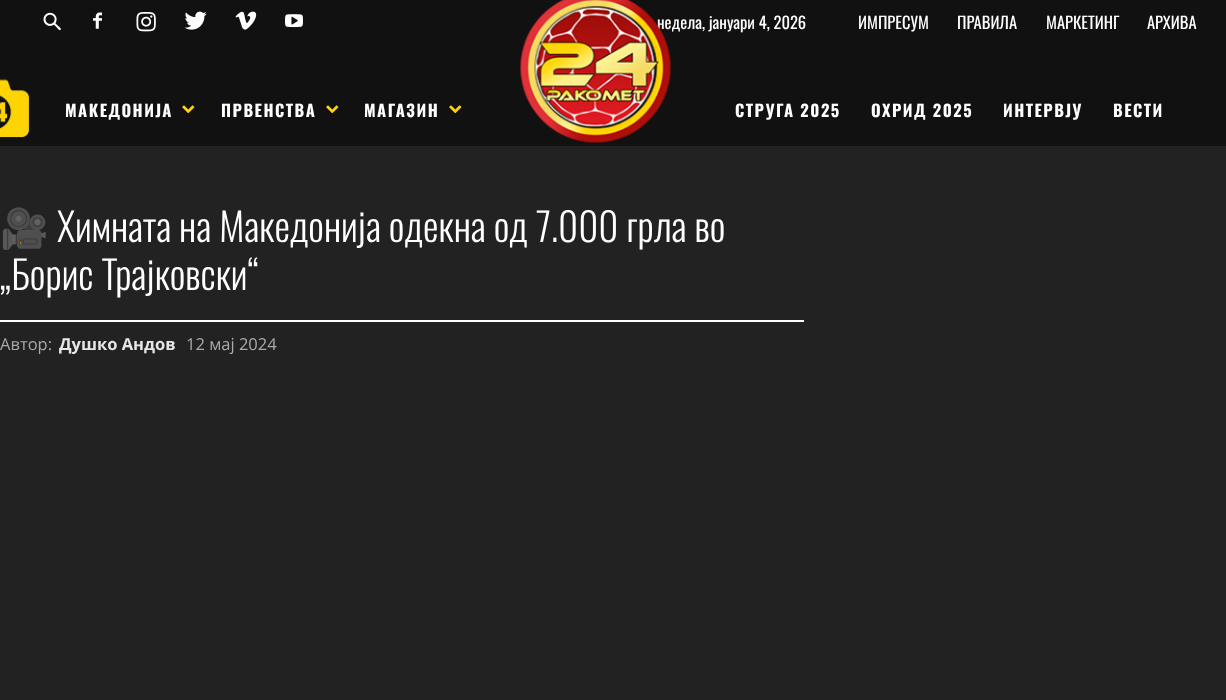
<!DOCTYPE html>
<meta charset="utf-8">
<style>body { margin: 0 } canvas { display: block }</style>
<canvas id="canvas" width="1226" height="700"></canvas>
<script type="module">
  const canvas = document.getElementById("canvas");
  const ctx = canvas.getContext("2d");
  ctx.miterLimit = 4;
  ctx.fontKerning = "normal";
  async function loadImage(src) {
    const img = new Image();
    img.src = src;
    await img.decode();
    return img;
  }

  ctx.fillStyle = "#222222";
  ctx.fillRect(0, 0, 1226, 700);
  ctx.fillStyle = "#111111";
  ctx.fillRect(0, 0, 1226, 146);
  ctx.font = "16.5px Oswald";
  ctx.fillStyle = "#ffffff";
  ctx.fillText("недела, јануари 4, 2026", 657, 29);
  ctx.drawImage(await loadImage("img1.png"), 520, 0, 151, 143);
  ctx.drawImage(await loadImage("img2.png"), 43, 12, 18, 19);
  ctx.drawImage(await loadImage("img3.png"), 93, 12, 9, 17);
  ctx.drawImage(await loadImage("img4.png"), 136, 12, 20, 20);
  ctx.drawImage(await loadImage("img5.png"), 184, 11, 23, 19);
  ctx.drawImage(await loadImage("img6.png"), 235, 11, 22, 19);
  ctx.drawImage(await loadImage("img7.png"), 285, 14, 18, 14);
  ctx.fillText("ИМПРЕСУМ", 858, 29);
  ctx.fillText("ПРАВИЛА", 957, 29);
  ctx.fillText("МАРКЕТИНГ", 1046, 29);
  ctx.fillText("АРХИВА", 1147, 29);
  ctx.drawImage(await loadImage("img8.png"), 0, 79, 30, 59);
  ctx.letterSpacing = "1.5px";
  ctx.font = "bold 16.5px Oswald";
  ctx.fillText("МАКЕДОНИЈА", 65, 117);
  ctx.drawImage(await loadImage("img9.png"), 182, 105, 13, 9);
  ctx.fillText("ПРВЕНСТВА", 221, 117);
  ctx.drawImage(await loadImage("img9.png"), 326, 105, 13, 9);
  ctx.fillText("МАГАЗИН", 364, 117);
  ctx.drawImage(await loadImage("img9.png"), 449, 105, 13, 9);
  ctx.fillText("СТРУГА 2025", 735, 117);
  ctx.fillText("ОХРИД 2025", 871, 117);
  ctx.fillText("ИНТЕРВЈУ", 1003, 117);
  ctx.fillText("ВЕСТИ", 1113, 117);
  ctx.fillRect(0, 320, 804, 2);
  ctx.letterSpacing = "0px";
  ctx.font = "39px Noto Color Emoji";
  ctx.fillText("🎥", 0, 242);
  ctx.font = "300 39px Oswald";
  ctx.fillText("Химната на Македонија одекна од 7.000 грла во", 57, 242);
  ctx.fillText("„Борис Трајковски“", 0, 290);
  ctx.font = "16.5px Open Sans";
  ctx.fillStyle = "#aaaaaa";
  ctx.fillText("Автор:", 0, 350);
  ctx.font = "bold 16.5px Open Sans";
  ctx.fillStyle = "#e6e6e6";
  ctx.fillText("Душко Андов", 59, 350);
  ctx.font = "16.5px Open Sans";
  ctx.fillStyle = "#aaaaaa";
  ctx.fillText("12 мај 2024", 186, 350);
</script>
